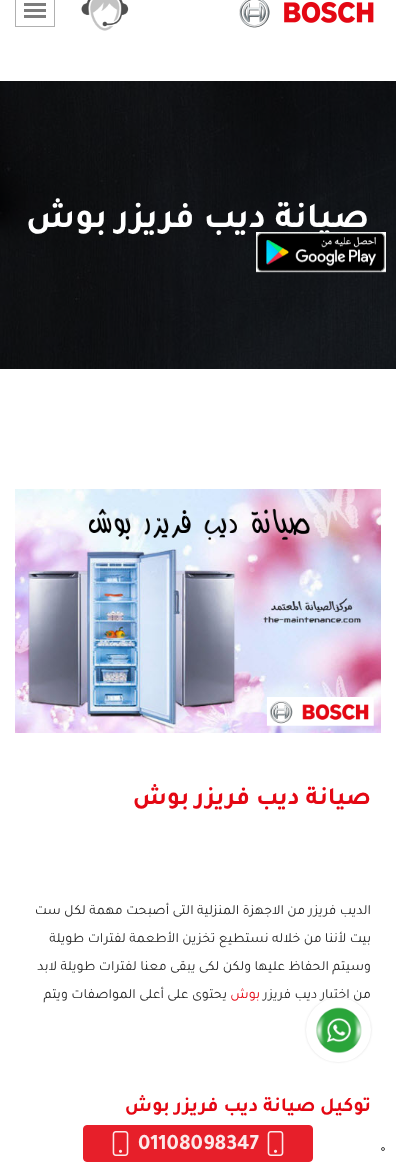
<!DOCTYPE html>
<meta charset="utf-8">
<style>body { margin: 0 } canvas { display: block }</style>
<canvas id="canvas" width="396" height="1162"></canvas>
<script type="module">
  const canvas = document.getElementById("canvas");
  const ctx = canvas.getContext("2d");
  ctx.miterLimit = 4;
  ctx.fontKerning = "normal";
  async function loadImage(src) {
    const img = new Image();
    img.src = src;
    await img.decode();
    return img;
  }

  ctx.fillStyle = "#ffffff";
  ctx.fillRect(0, 0, 396, 1162);
  ctx.drawImage(await loadImage("img1.png"), 239, 0, 135, 28);
  ctx.drawImage(await loadImage("img2.png"), 81, 0, 48, 31);
  ctx.strokeStyle = "#b0b0b0";
  ctx.strokeRect(15.5, -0.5, 39, 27);
  ctx.fillStyle = "#7d7d7d";
  ctx.fillRect(24, 3, 22, 3);
  ctx.fillRect(24, 9, 22, 3);
  ctx.fillRect(24, 15, 22, 3);
  ctx.drawImage(await loadImage("img3.png"), 0, 81, 396, 288);
  ctx.direction = "rtl";
  ctx.font = "bold 36px Tajawal";
  ctx.fillStyle = "#ffffff";
  ctx.fillText("صيانة ديب فريزر بوش", 369, 227);
  ctx.drawImage(await loadImage("img4.png"), 256, 232, 130, 41);
  ctx.drawImage(await loadImage("img5.png"), 15, 489, 366, 244);
  ctx.font = "bold 25px Tajawal";
  ctx.fillStyle = "#e40713";
  ctx.fillText("صيانة ديب فريزر بوش", 371, 804);
  ctx.font = "14px Tajawal";
  ctx.fillStyle = "#262626";
  ctx.fillText("الديب فريزر من الاجهزة المنزلية التى أصبحت مهمة لكل ست", 371, 914);
  ctx.fillText("بيت لأننا من خلاله نستطيع تخزين الأطعمة لفترات طويلة", 371, 942);
  ctx.fillText("وسيتم الحفاظ عليها ولكن لكى يبقى معنا لفترات طويلة لابد", 371, 970);
  ctx.fillText("من اختيار ديب فريزر", 371, 998);
  ctx.fillStyle = "#e40713";
  ctx.fillText("بوش", 260, 998);
  ctx.fillStyle = "#262626";
  ctx.fillText("يحتوى على أعلى المواصفات ويتم", 227, 998);
  ctx.font = "bold 20px Tajawal";
  ctx.fillStyle = "#e40713";
  ctx.fillText("توكيل صيانة ديب فريزر بوش", 371, 1111);
  ctx.beginPath();
  ctx.arc(383, 1149, 1.5, 0, Math.PI * 2);
  ctx.strokeStyle = "#444444";
  ctx.stroke();
  ctx.fillStyle = "#dddddd";
  ctx.filter = "blur(1px)";
  ctx.beginPath();
  ctx.roundRect(306, 998, 65, 64, 32);
  ctx.fill();
  ctx.filter = "none";
  ctx.fillStyle = "#ffffff";
  ctx.beginPath();
  ctx.roundRect(310, 1002, 57, 56, 28);
  ctx.fill();
  ctx.strokeStyle = "#ffffff";
  ctx.lineWidth = 8;
  ctx.stroke();
  ctx.drawImage(await loadImage("img6.png"), 316, 1007, 46, 47);
  ctx.fillStyle = "rgba(228, 7, 19, 0.9)";
  ctx.beginPath();
  ctx.roundRect(83.5, 1125.5, 229, 36, 3.5);
  ctx.fill();
  ctx.strokeStyle = "#e7202b";
  ctx.lineWidth = 1;
  ctx.stroke();
  ctx.drawImage(await loadImage("img7.png"), 267, 1131, 17, 25);
  ctx.direction = "ltr";
  ctx.font = "bold 22px Tajawal";
  ctx.fillStyle = "#fce9ea";
  ctx.fillText("01108098347", 138, 1149);
  ctx.drawImage(await loadImage("img8.png"), 112, 1131, 17, 25);
</script>
